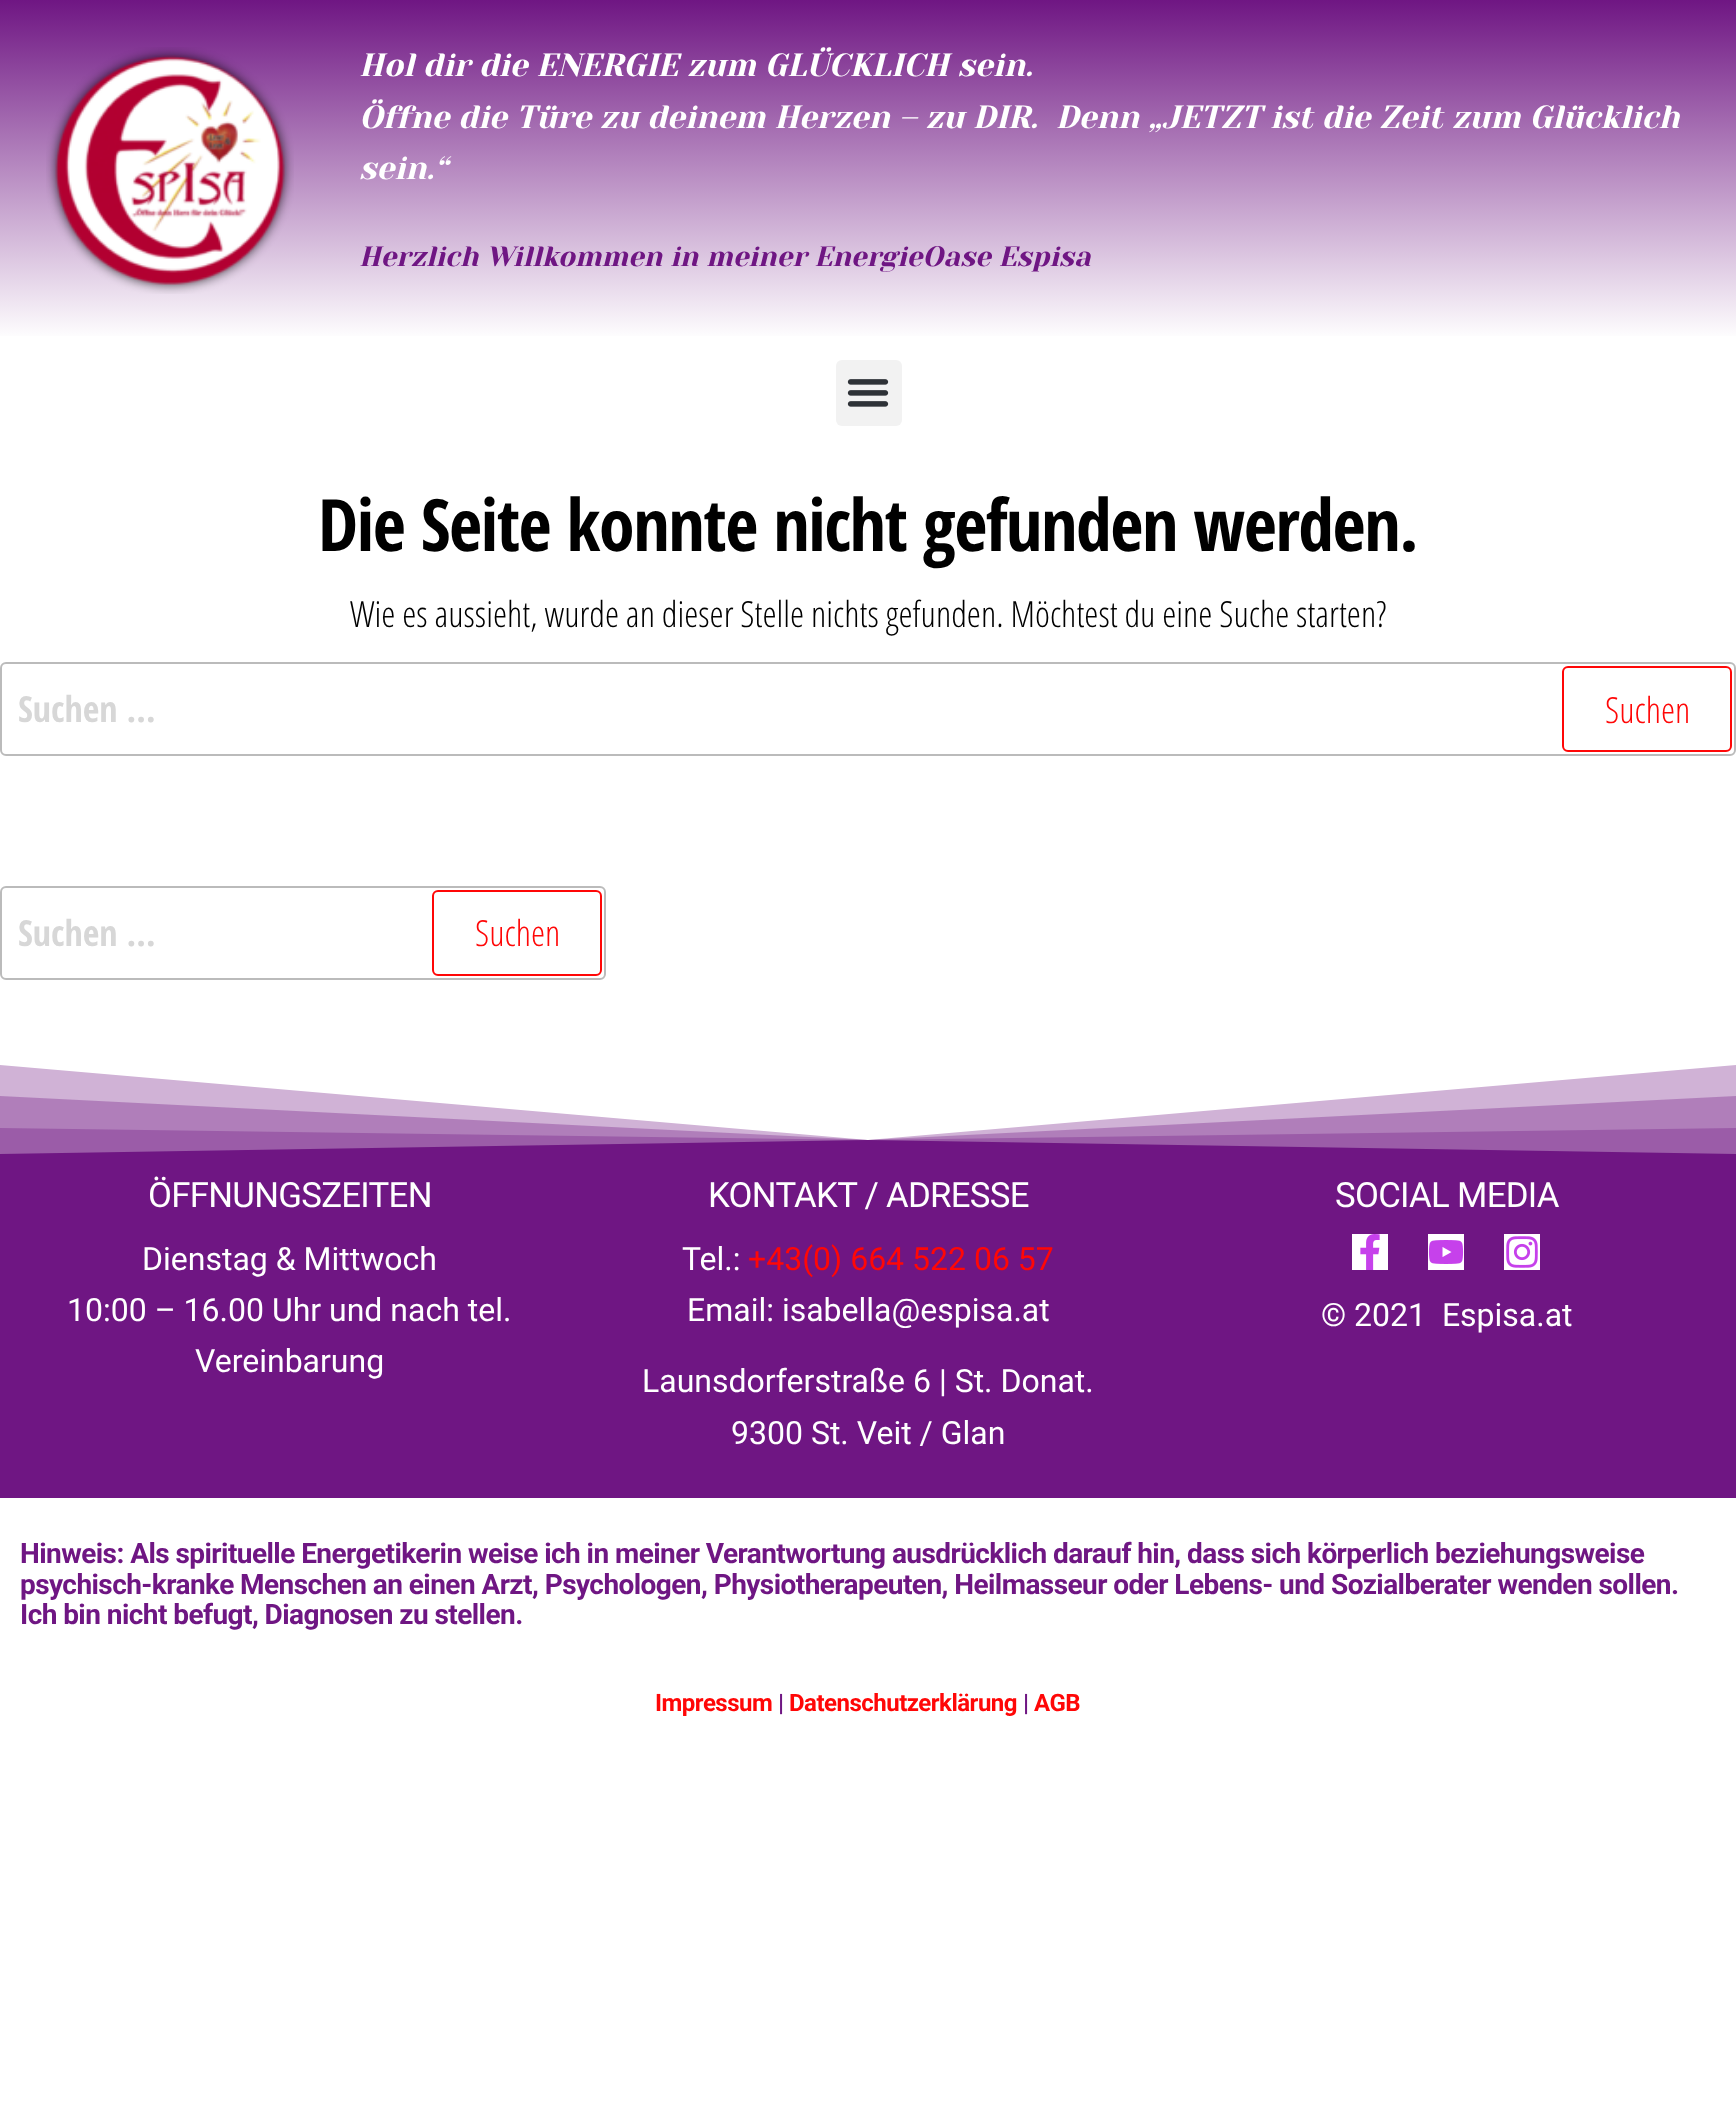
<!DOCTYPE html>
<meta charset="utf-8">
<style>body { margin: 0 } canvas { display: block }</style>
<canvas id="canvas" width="1736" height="2102"></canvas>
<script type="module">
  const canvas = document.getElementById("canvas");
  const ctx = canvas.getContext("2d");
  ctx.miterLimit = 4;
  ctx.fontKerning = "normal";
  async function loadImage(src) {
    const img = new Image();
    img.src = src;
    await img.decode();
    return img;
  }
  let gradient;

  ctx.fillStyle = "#ffffff";
  ctx.fillRect(0, 0, 1736, 2102);
  gradient = ctx.createLinearGradient(868, 0, 868, 340);
  gradient.addColorStop(0, "#6f1683");
  gradient.addColorStop(1, "#ffffff");
  ctx.fillStyle = gradient;
  ctx.fillRect(0, 0, 1736, 336);
  ctx.drawImage(await loadImage("img1.png"), 46, 47, 248, 247);
  ctx.font = "italic 32px Yeseva One";
  ctx.fillStyle = "#ffffff";
  ctx.fillText("Hol dir die ENERGIE zum GLÜCKLICH sein.", 359, 76);
  ctx.fillText("Öffne die Türe zu deinem Herzen – zu DIR.  Denn „JETZT ist die Zeit zum Glücklich", 359, 128);
  ctx.fillText("sein.“", 359, 179);
  ctx.font = "italic 28px Yeseva One";
  ctx.fillStyle = "#6f1683";
  ctx.fillText("Herzlich Willkommen in meiner EnergieOase Espisa", 359, 266);
  ctx.fillStyle = "#f2f2f2";
  ctx.beginPath();
  ctx.roundRect(836, 360, 66, 66, 6);
  ctx.fill();
  ctx.drawImage(await loadImage("img2.png"), 847, 379, 42, 28);
  ctx.letterSpacing = "-1.45px";
  ctx.font = "bold 72px Open Sans Condensed";
  ctx.fillStyle = "#000000";
  ctx.fillText("Die Seite konnte nicht gefunden werden.", 318, 551);
  ctx.letterSpacing = "0px";
  ctx.font = "300 36px Open Sans Condensed";
  ctx.fillText("Wie es aussieht, wurde an dieser Stelle nichts gefunden. Möchtest du eine Suche starten?", 350, 627);
  ctx.beginPath();
  ctx.roundRect(1, 663, 1734, 92, 5);
  ctx.strokeStyle = "#bbbbbb";
  ctx.lineWidth = 2;
  ctx.stroke();
  ctx.font = "bold 36px Open Sans Condensed";
  ctx.fillStyle = "#d7d7d7";
  ctx.fillText("Suchen …", 18, 722);
  ctx.beginPath();
  ctx.roundRect(1563, 667, 168, 84, 5);
  ctx.strokeStyle = "#ff0707";
  ctx.stroke();
  ctx.font = "300 36px Open Sans Condensed";
  ctx.fillStyle = "#ff0707";
  ctx.fillText("Suchen", 1605, 723);
  ctx.beginPath();
  ctx.roundRect(1, 887, 604, 92, 5);
  ctx.strokeStyle = "#bbbbbb";
  ctx.stroke();
  ctx.font = "bold 36px Open Sans Condensed";
  ctx.fillStyle = "#d7d7d7";
  ctx.fillText("Suchen …", 18, 946);
  ctx.beginPath();
  ctx.roundRect(433, 891, 168, 84, 5);
  ctx.strokeStyle = "#ff0707";
  ctx.stroke();
  ctx.font = "300 36px Open Sans Condensed";
  ctx.fillStyle = "#ff0707";
  ctx.fillText("Suchen", 475, 946);
  ctx.fillStyle = "#d0b2d6";
  ctx.beginPath();
  ctx.moveTo(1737, 1161);
  ctx.lineTo(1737, 1065);
  ctx.lineTo(868, 1140);
  ctx.lineTo(-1, 1065);
  ctx.lineTo(-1, 1161);
  ctx.closePath();
  ctx.fill();
  ctx.fillStyle = "rgba(111, 22, 131, 0.33)";
  ctx.beginPath();
  ctx.moveTo(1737, 1161);
  ctx.lineTo(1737, 1096);
  ctx.lineTo(868, 1140);
  ctx.lineTo(-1, 1096);
  ctx.lineTo(-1, 1161);
  ctx.closePath();
  ctx.fill();
  ctx.fillStyle = "#9b5ca8";
  ctx.beginPath();
  ctx.moveTo(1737, 1161);
  ctx.lineTo(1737, 1128);
  ctx.lineTo(868, 1140);
  ctx.lineTo(-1, 1128);
  ctx.lineTo(-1, 1161);
  ctx.closePath();
  ctx.fill();
  ctx.fillStyle = "#6f1683";
  ctx.beginPath();
  ctx.moveTo(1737, 1161);
  ctx.lineTo(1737, 1154);
  ctx.lineTo(868, 1140);
  ctx.lineTo(-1, 1154);
  ctx.lineTo(-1, 1161);
  ctx.closePath();
  ctx.fill();
  ctx.fillRect(0, 1161, 1736, 337);
  ctx.letterSpacing = "-0.7px";
  ctx.font = "34.75px Roboto";
  ctx.fillStyle = "#ffffff";
  ctx.fillText("ÖFFNUNGSZEITEN", 148, 1207);
  ctx.letterSpacing = "0px";
  ctx.font = "32px Roboto";
  ctx.fillText("Dienstag & Mittwoch", 142, 1270);
  ctx.fillText("10:00 – 16.00 Uhr und nach tel.", 67, 1321);
  ctx.fillText("Vereinbarung", 195, 1372);
  ctx.letterSpacing = "-0.7px";
  ctx.font = "34.75px Roboto";
  ctx.fillText("KONTAKT / ADRESSE", 708, 1207);
  ctx.letterSpacing = "0px";
  ctx.font = "32px Roboto";
  ctx.fillText("Tel.:", 682, 1270);
  ctx.fillStyle = "#ff0707";
  ctx.fillText("+43(0) 664 522 06 57", 748, 1270);
  ctx.fillStyle = "#ffffff";
  ctx.fillText("Email: isabella@espisa.at", 687, 1321);
  ctx.fillText("Launsdorferstraße 6 | St. Donat.", 642, 1392);
  ctx.fillText("9300 St. Veit / Glan", 731, 1444);
  ctx.letterSpacing = "-0.7px";
  ctx.font = "34.75px Roboto";
  ctx.fillText("SOCIAL MEDIA", 1335, 1207);
  ctx.fillRect(1352, 1234, 36, 36);
  ctx.drawImage(await loadImage("img3.png"), 1360, 1234, 20, 36);
  ctx.fillRect(1428, 1234, 36, 36);
  ctx.drawImage(await loadImage("img4.png"), 1428, 1240, 36, 24);
  ctx.fillRect(1504, 1234, 36, 36);
  ctx.drawImage(await loadImage("img5.png"), 1506, 1236, 32, 32);
  ctx.letterSpacing = "0px";
  ctx.font = "32px Roboto";
  ctx.fillText("© 2021  Espisa.at", 1321, 1326);
  ctx.letterSpacing = "-0.56px";
  ctx.font = "bold 28px Roboto";
  ctx.fillStyle = "#6f1683";
  ctx.fillText("Hinweis: Als spirituelle Energetikerin weise ich in meiner Verantwortung ausdrücklich darauf hin, dass sich körperlich beziehungsweise", 20, 1563);
  ctx.fillText("psychisch-kranke Menschen an einen Arzt, Psychologen, Physiotherapeuten, Heilmasseur oder Lebens- und Sozialberater wenden sollen.", 20, 1594);
  ctx.fillText("Ich bin nicht befugt, Diagnosen zu stellen.", 20, 1624);
  ctx.letterSpacing = "-0.5px";
  ctx.font = "bold 24px Roboto";
  ctx.fillStyle = "#ff0707";
  ctx.fillText("Impressum", 655, 1711);
  ctx.fillStyle = "#6f1683";
  ctx.fillText("|", 778, 1711);
  ctx.fillStyle = "#ff0707";
  ctx.fillText("Datenschutzerklärung", 789, 1711);
  ctx.fillStyle = "#6f1683";
  ctx.fillText("|", 1023, 1711);
  ctx.fillStyle = "#ff0707";
  ctx.fillText("AGB", 1034, 1711);
</script>
